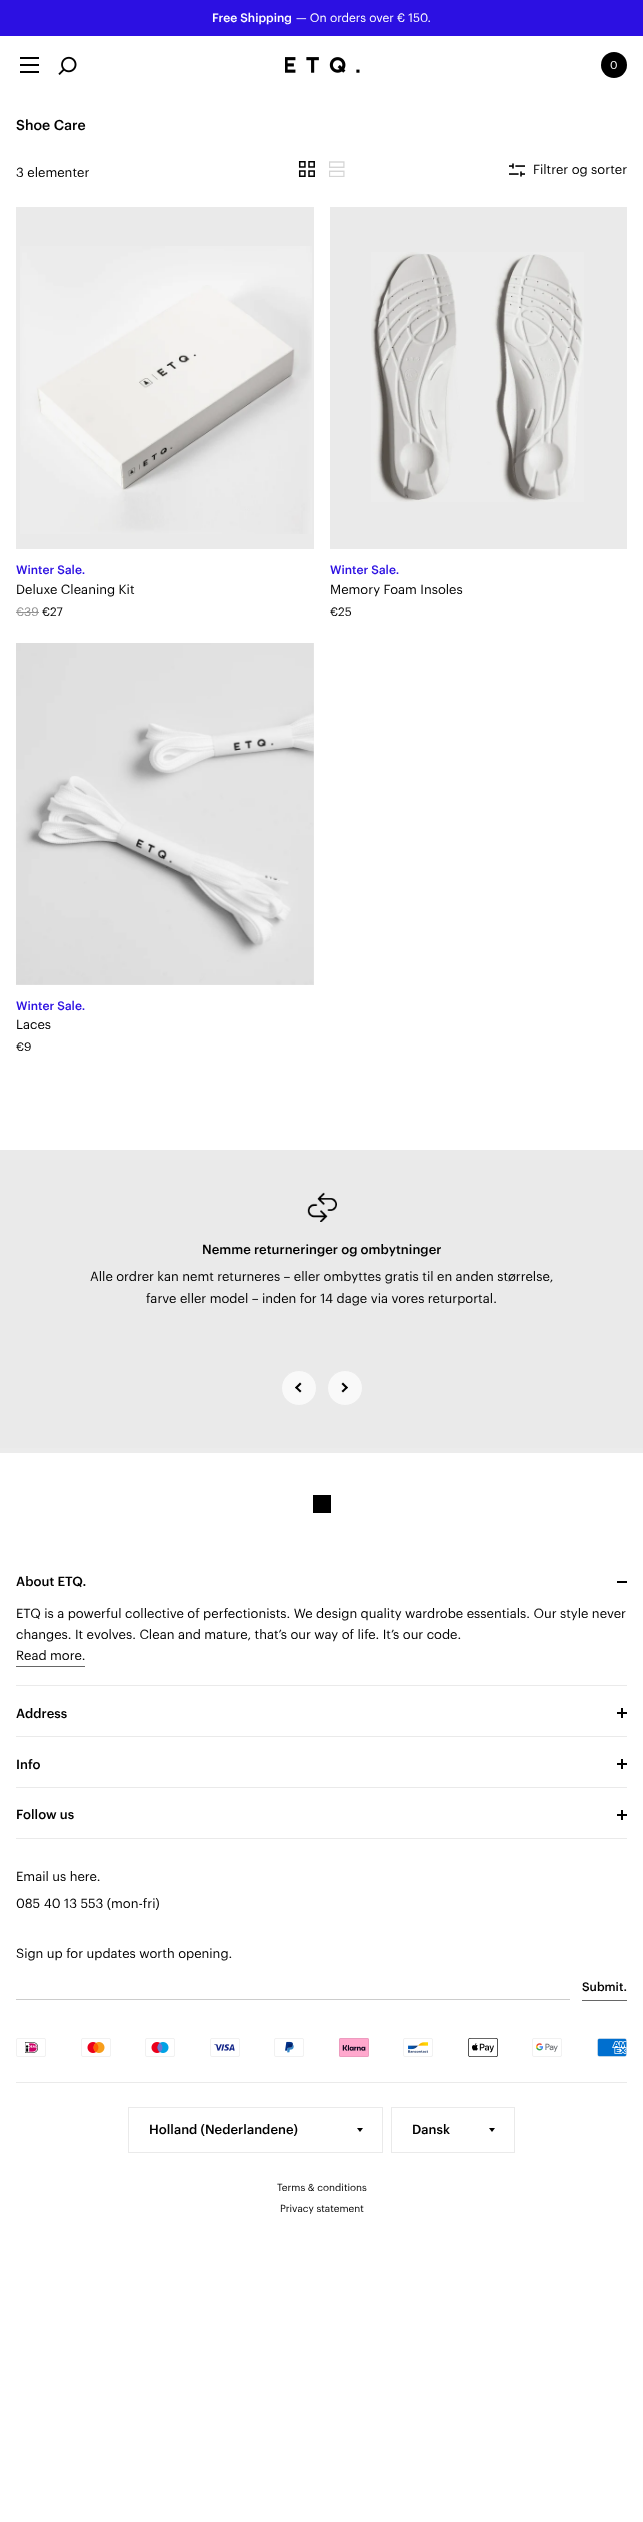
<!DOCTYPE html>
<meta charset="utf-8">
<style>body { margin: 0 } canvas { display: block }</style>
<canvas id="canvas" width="643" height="2522"></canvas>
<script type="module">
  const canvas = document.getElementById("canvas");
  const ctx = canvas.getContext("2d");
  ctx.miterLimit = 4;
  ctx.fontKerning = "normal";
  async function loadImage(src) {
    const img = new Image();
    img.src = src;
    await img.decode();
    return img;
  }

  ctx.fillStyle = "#ffffff";
  ctx.fillRect(0, 0, 643, 2522);
  ctx.fillStyle = "#2c10e2";
  ctx.fillRect(0, 0, 643, 36);
  ctx.font = "500 12px Graphik";
  ctx.fillStyle = "#ffffff";
  ctx.fillText("Free Shipping", 212, 22);
  ctx.font = "12px Graphik";
  ctx.fillText("— On orders over € 150.", 296, 22);
  ctx.fillStyle = "#000000";
  ctx.fillRect(20, 64, 19, 2);
  ctx.fillRect(20, 57, 19, 2);
  ctx.fillRect(20, 71, 19, 2);
  ctx.drawImage(await loadImage("img1.png"), 58, 56, 19, 19);
  ctx.drawImage(await loadImage("img2.png"), 285, 57, 75, 16);
  ctx.beginPath();
  ctx.arc(614, 65, 13, 0, Math.PI * 2);
  ctx.fill();
  ctx.font = "11px Graphik";
  ctx.fillStyle = "#ffffff";
  ctx.fillText("0", 610, 69);
  ctx.font = "500 14px Graphik";
  ctx.fillStyle = "#000000";
  ctx.fillText("Shoe Care", 16, 130);
  ctx.font = "13px Graphik";
  ctx.fillText("3 elementer", 16, 177);
  ctx.drawImage(await loadImage("img3.png"), 298, 161, 17, 16);
  ctx.drawImage(await loadImage("img4.png"), 329, 161, 16, 16);
  ctx.drawImage(await loadImage("img5.png"), 509, 163, 16, 14);
  ctx.fillText("Filtrer og sorter", 533, 174);
  ctx.fillStyle = "#eaeaea";
  ctx.fillRect(16, 207, 298, 342);
  ctx.drawImage(await loadImage("img6.png"), 20, 246, 292, 288);
  ctx.font = "500 12px Graphik";
  ctx.fillStyle = "#2c10e2";
  ctx.fillText("Winter Sale.", 16, 574);
  ctx.font = "13px Graphik";
  ctx.fillStyle = "#000000";
  ctx.fillText("Deluxe Cleaning Kit", 16, 594);
  ctx.font = "12px Graphik";
  ctx.fillStyle = "#929292";
  ctx.fillText("€39", 16, 616);
  ctx.fillRect(16, 612, 23, 1);
  ctx.fillStyle = "#000000";
  ctx.fillText("€27", 42, 616);
  ctx.fillStyle = "#eaeaea";
  ctx.fillRect(330, 207, 297, 342);
  ctx.drawImage(await loadImage("img7.png"), 371, 252, 213, 250);
  ctx.font = "500 12px Graphik";
  ctx.fillStyle = "#2c10e2";
  ctx.fillText("Winter Sale.", 330, 574);
  ctx.font = "13px Graphik";
  ctx.fillStyle = "#000000";
  ctx.fillText("Memory Foam Insoles", 330, 594);
  ctx.font = "12px Graphik";
  ctx.fillText("€25", 330, 616);
  ctx.fillStyle = "#eaeaea";
  ctx.fillRect(16, 643, 298, 342);
  ctx.drawImage(await loadImage("img8.png"), 16, 643, 298, 342);
  ctx.font = "500 12px Graphik";
  ctx.fillStyle = "#2c10e2";
  ctx.fillText("Winter Sale.", 16, 1010);
  ctx.font = "13px Graphik";
  ctx.fillStyle = "#000000";
  ctx.fillText("Laces", 16, 1029);
  ctx.font = "12px Graphik";
  ctx.fillText("€9", 16, 1051);
  ctx.fillStyle = "#ececec";
  ctx.fillRect(0, 1448, 643, 5);
  ctx.fillStyle = "#eaeaea";
  ctx.fillRect(0, 1150, 643, 298);
  ctx.drawImage(await loadImage("img9.png"), 307, 1192, 30, 30);
  ctx.font = "500 13px Graphik";
  ctx.fillStyle = "#000000";
  ctx.fillText("Nemme returneringer og ombytninger", 202, 1254);
  ctx.font = "13px Graphik";
  ctx.fillText("Alle ordrer kan nemt returneres – eller ombyttes gratis til en anden størrelse,", 90, 1281);
  ctx.fillText("farve eller model – inden for 14 dage via vores returportal.", 146, 1303);
  ctx.fillStyle = "#f9f9f9";
  ctx.beginPath();
  ctx.arc(299, 1388, 17.5, 0, Math.PI * 2);
  ctx.fill();
  ctx.strokeStyle = "#eaeaea";
  ctx.stroke();
  ctx.fillStyle = "#000000";
  ctx.beginPath();
  ctx.moveTo(301.5, 1391);
  ctx.lineTo(300, 1392.5);
  ctx.lineTo(295, 1387.5);
  ctx.lineTo(296.5, 1386.5);
  ctx.closePath();
  ctx.fill();
  ctx.beginPath();
  ctx.moveTo(301.5, 1384);
  ctx.lineTo(296.5, 1389);
  ctx.lineTo(295, 1387.5);
  ctx.lineTo(300, 1382.5);
  ctx.closePath();
  ctx.fill();
  ctx.fillStyle = "#f9f9f9";
  ctx.beginPath();
  ctx.arc(345, 1388, 17.5, 0, Math.PI * 2);
  ctx.fill();
  ctx.stroke();
  ctx.fillStyle = "#000000";
  ctx.beginPath();
  ctx.moveTo(341.5, 1384);
  ctx.lineTo(343, 1382.5);
  ctx.lineTo(348, 1387.5);
  ctx.lineTo(346.5, 1389);
  ctx.closePath();
  ctx.fill();
  ctx.beginPath();
  ctx.moveTo(341.5, 1391);
  ctx.lineTo(346.5, 1386.5);
  ctx.lineTo(348, 1387.5);
  ctx.lineTo(343, 1392.5);
  ctx.closePath();
  ctx.fill();
  ctx.fillRect(313, 1495, 18, 18);
  ctx.fillStyle = "#eaeaea";
  ctx.fillRect(16, 1685, 611, 1);
  ctx.font = "500 13px Graphik";
  ctx.fillStyle = "#000000";
  ctx.fillText("About ETQ.", 16, 1586);
  ctx.fillRect(617, 1581, 10, 2);
  ctx.font = "13px Graphik";
  ctx.fillText("ETQ is a powerful collective of perfectionists. We design quality wardrobe essentials. Our style never", 16, 1618);
  ctx.fillText("changes. It evolves. Clean and mature, that’s our way of life. It’s our code.", 16, 1639);
  ctx.fillText("Read more.", 16, 1660);
  ctx.fillStyle = "#666666";
  ctx.fillRect(16, 1666, 69, 1);
  ctx.fillStyle = "#eaeaea";
  ctx.fillRect(16, 1736, 611, 1);
  ctx.font = "500 13px Graphik";
  ctx.fillStyle = "#000000";
  ctx.fillText("Address", 16, 1718);
  ctx.fillRect(621, 1708, 2, 10);
  ctx.fillRect(617, 1712, 10, 2);
  ctx.fillStyle = "#eaeaea";
  ctx.fillRect(16, 1787, 611, 1);
  ctx.fillStyle = "#000000";
  ctx.fillText("Info", 16, 1769);
  ctx.fillRect(621, 1759, 2, 10);
  ctx.fillRect(617, 1763, 10, 2);
  ctx.fillStyle = "#eaeaea";
  ctx.fillRect(16, 1838, 611, 1);
  ctx.fillStyle = "#000000";
  ctx.fillText("Follow us", 16, 1819);
  ctx.fillRect(621, 1810, 2, 10);
  ctx.fillRect(617, 1814, 10, 2);
  ctx.font = "13px Graphik";
  ctx.fillText("Email us here.", 16, 1881);
  ctx.fillText("085 40 13 553 (mon-fri)", 16, 1908);
  ctx.fillText("Sign up for updates worth opening.", 16, 1958);
  ctx.fillStyle = "#cccccc";
  ctx.fillRect(16, 1999, 554, 1);
  ctx.font = "500 12px Graphik";
  ctx.fillStyle = "#000000";
  ctx.fillText("Submit.", 582, 1991);
  ctx.fillStyle = "#666666";
  ctx.fillRect(582, 2000, 45, 1);
  ctx.fillStyle = "#eaeaea";
  ctx.fillRect(16, 2082, 611, 1);
  ctx.drawImage(await loadImage("img10.png"), 16, 2038, 30, 19);
  ctx.drawImage(await loadImage("img11.png"), 81, 2038, 30, 19);
  ctx.drawImage(await loadImage("img12.png"), 145, 2038, 30, 19);
  ctx.drawImage(await loadImage("img13.png"), 210, 2038, 30, 19);
  ctx.drawImage(await loadImage("img14.png"), 274, 2038, 30, 19);
  ctx.drawImage(await loadImage("img15.png"), 339, 2038, 30, 19);
  ctx.drawImage(await loadImage("img16.png"), 403, 2038, 30, 19);
  ctx.drawImage(await loadImage("img17.png"), 468, 2038, 30, 19);
  ctx.drawImage(await loadImage("img18.png"), 532, 2038, 30, 19);
  ctx.drawImage(await loadImage("img19.png"), 597, 2038, 30, 19);
  ctx.strokeRect(128.5, 2107.5, 254, 45);
  ctx.font = "500 13px Graphik";
  ctx.fillStyle = "#000000";
  ctx.fillText("Holland (Nederlandene)", 149, 2134);
  ctx.beginPath();
  ctx.moveTo(357, 2128);
  ctx.lineTo(363, 2128);
  ctx.lineTo(360, 2132);
  ctx.closePath();
  ctx.fill();
  ctx.strokeRect(391.5, 2107.5, 123, 45);
  ctx.fillText("Dansk", 412, 2134);
  ctx.beginPath();
  ctx.moveTo(489, 2128);
  ctx.lineTo(495, 2128);
  ctx.lineTo(492, 2132);
  ctx.closePath();
  ctx.fill();
  ctx.font = "10px Graphik";
  ctx.fillText("Terms & conditions", 277, 2191);
  ctx.fillText("Privacy statement", 280, 2212);
</script>
